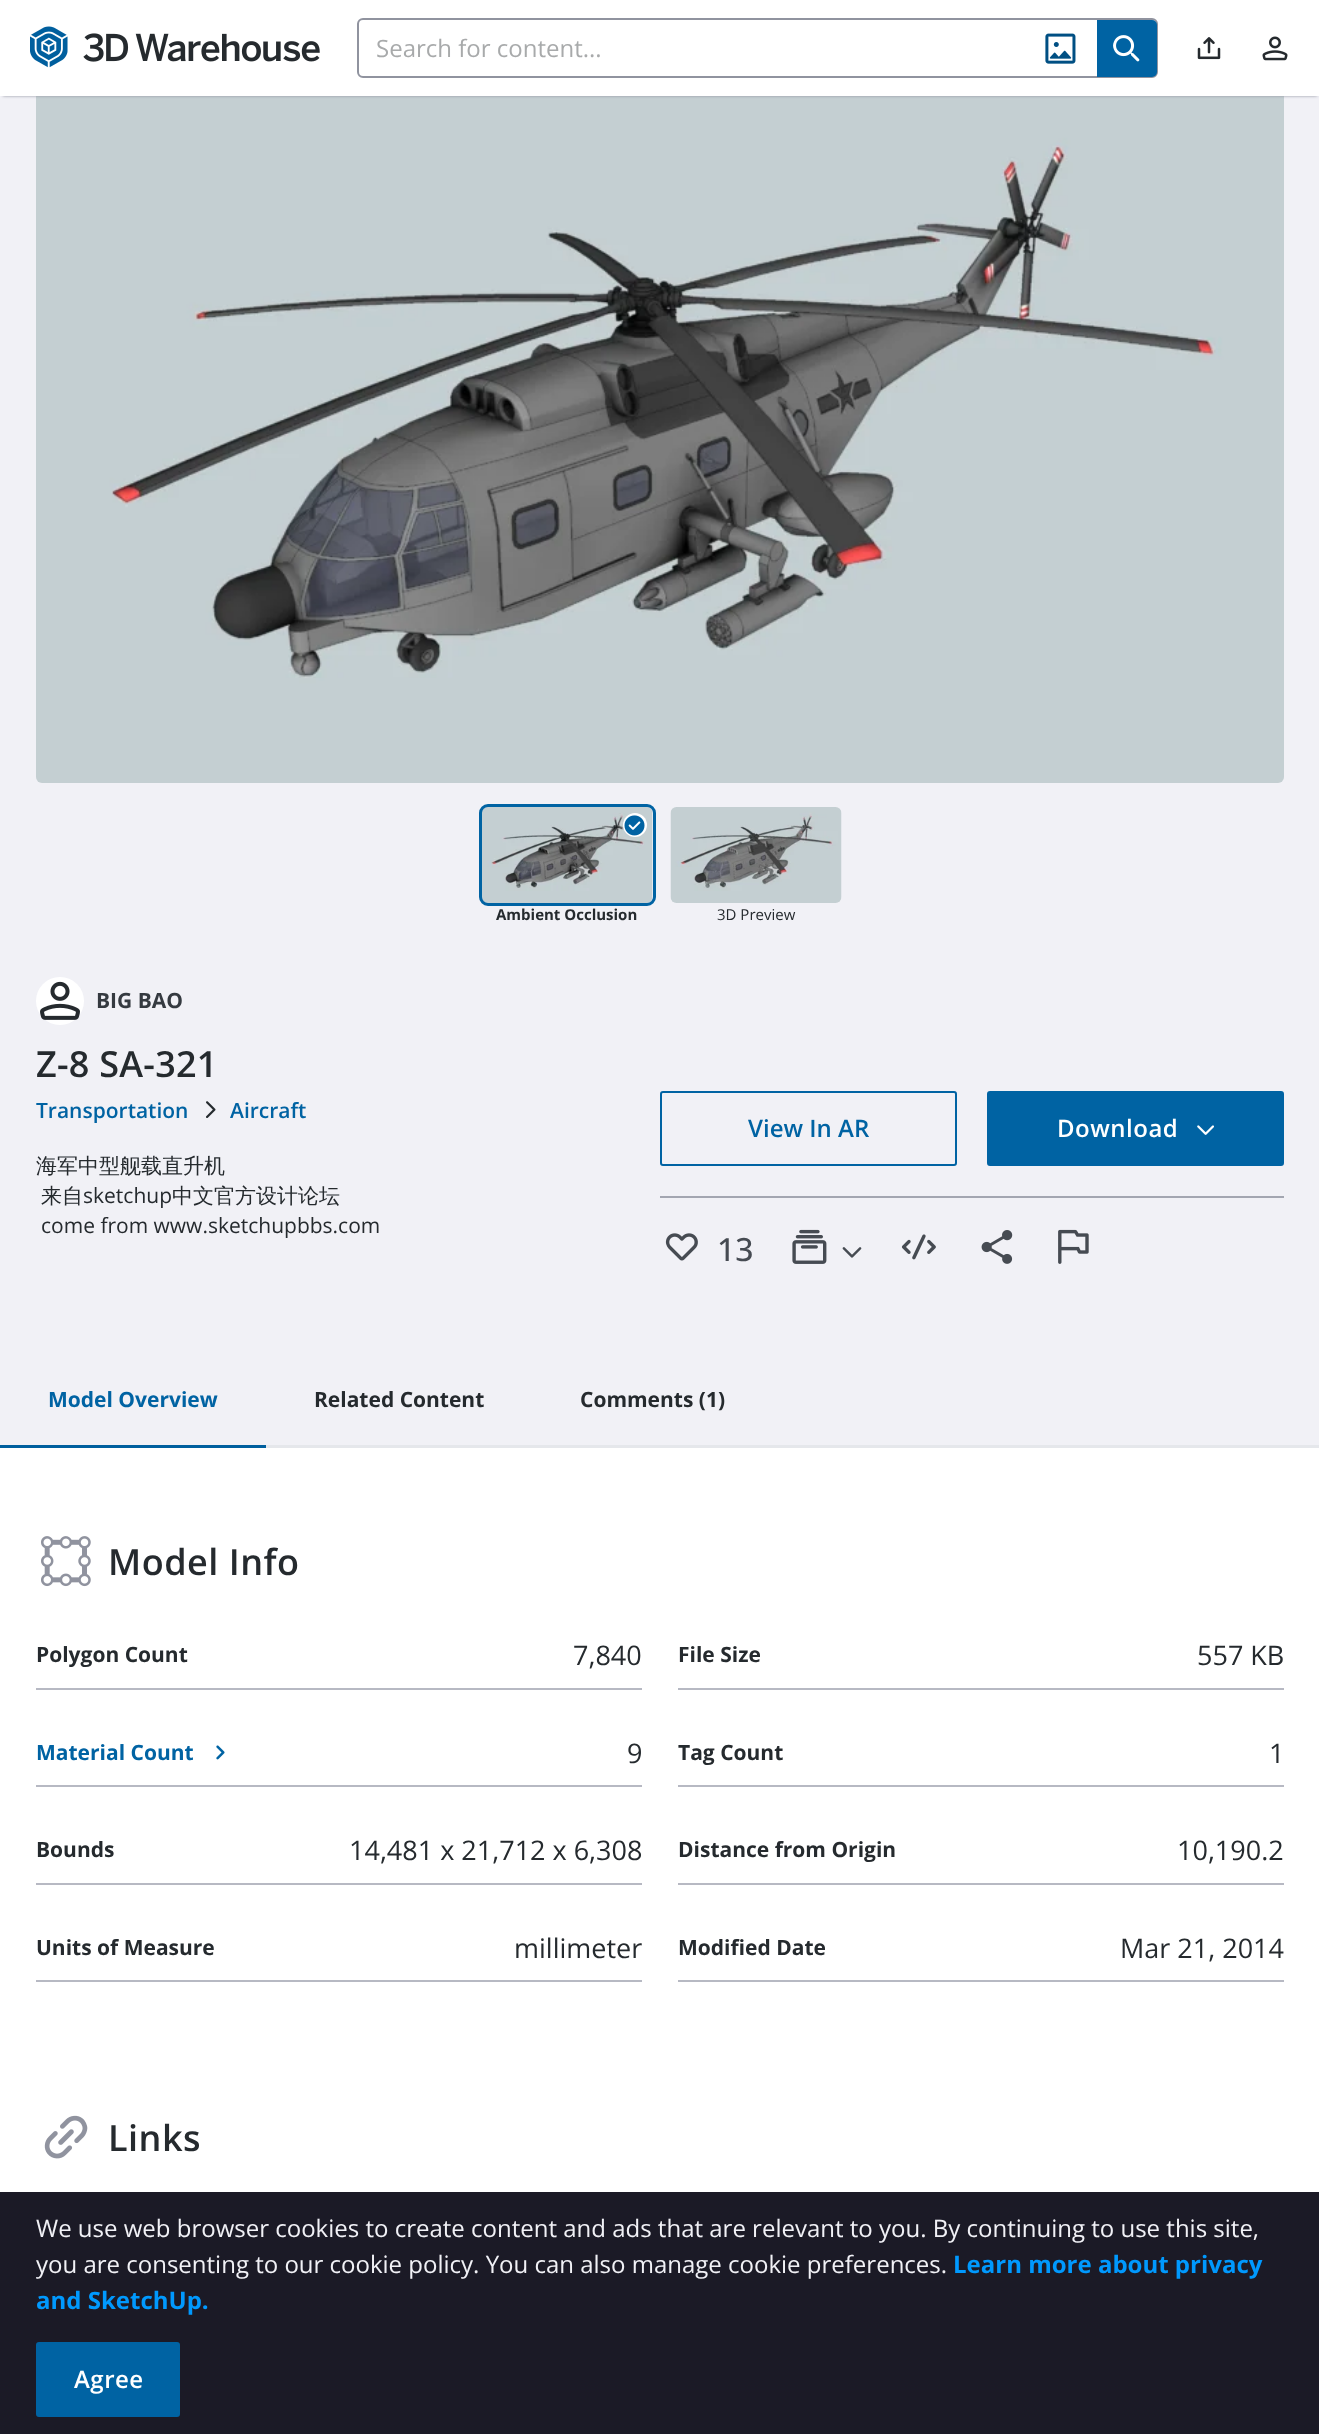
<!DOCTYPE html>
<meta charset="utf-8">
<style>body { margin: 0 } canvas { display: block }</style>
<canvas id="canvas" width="1319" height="2434"></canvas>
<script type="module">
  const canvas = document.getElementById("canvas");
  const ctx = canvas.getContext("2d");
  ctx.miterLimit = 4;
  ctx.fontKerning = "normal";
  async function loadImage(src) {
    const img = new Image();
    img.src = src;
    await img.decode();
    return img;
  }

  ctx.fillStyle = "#f1f1f6";
  ctx.fillRect(0, 0, 1319, 2434);
  ctx.drawImage(await loadImage("img7.png"), 36, 96, 1248, 687);
  ctx.fillStyle = "#90939f";
  ctx.filter = "blur(1.5px)";
  ctx.beginPath();
  ctx.rect(3, 6, 1314, 90);
  ctx.fill();
  ctx.filter = "none";
  ctx.fillStyle = "#ffffff";
  ctx.fillRect(0, 0, 1319, 96);
  ctx.drawImage(await loadImage("img1.png"), 30, 26, 38, 42);
  ctx.drawImage(await loadImage("img2.png"), 83, 33, 237, 29);
  ctx.beginPath();
  ctx.roundRect(358, 19, 799, 58, 5);
  ctx.strokeStyle = "#90939f";
  ctx.lineWidth = 2;
  ctx.stroke();
  ctx.font = "24px Open Sans";
  ctx.fillStyle = "#a8aaab";
  ctx.fillText("Search for content...", 376, 57);
  ctx.drawImage(await loadImage("img3.png"), 1045, 33, 31, 31);
  ctx.fillStyle = "#0063a3";
  ctx.beginPath();
  ctx.roundRect(1097, 20, 60, 57, [0, 5, 5, 0]);
  ctx.fill();
  ctx.drawImage(await loadImage("img4.png"), 1113, 35, 27, 27);
  ctx.drawImage(await loadImage("img5.png"), 1197, 37, 24, 23);
  ctx.drawImage(await loadImage("img6.png"), 1262, 36, 26, 25);
  ctx.drawImage(await loadImage("img8.png"), 482, 807, 171, 96);
  ctx.beginPath();
  ctx.roundRect(480.5, 805.5, 174, 99, 7.5);
  ctx.strokeStyle = "#0063a3";
  ctx.lineWidth = 3;
  ctx.stroke();
  ctx.fillStyle = "#ffffff";
  ctx.beginPath();
  ctx.arc(635, 825, 12, 0, Math.PI * 2);
  ctx.fill();
  ctx.drawImage(await loadImage("img9.png"), 624, 815, 21, 21);
  ctx.font = "bold 15px Open Sans";
  ctx.fillStyle = "#252a2e";
  ctx.fillText("Ambient Occlusion", 496, 920);
  ctx.drawImage(await loadImage("img10.png"), 670, 807, 172, 96);
  ctx.font = "15px Open Sans";
  ctx.fillText("3D Preview", 717, 920);
  ctx.fillStyle = "#ffffff";
  ctx.beginPath();
  ctx.arc(60, 1001, 24, 0, Math.PI * 2);
  ctx.fill();
  ctx.drawImage(await loadImage("img11.png"), 40, 981, 40, 39);
  ctx.font = "bold 21px Open Sans";
  ctx.fillStyle = "#353a40";
  ctx.fillText("BIG BAO", 96, 1008);
  ctx.letterSpacing = "0.25px";
  ctx.font = "600 36px Open Sans";
  ctx.fillStyle = "#252a2e";
  ctx.fillText("Z-8 SA-321", 36, 1077);
  ctx.letterSpacing = "0px";
  ctx.font = "600 21px Open Sans";
  ctx.fillStyle = "#0063a3";
  ctx.fillText("Transportation", 36, 1118);
  ctx.drawImage(await loadImage("img12.png"), 206, 1101, 10, 17);
  ctx.fillText("Aircraft", 230, 1118);
  ctx.font = "500 21px WenQuanYi Zen Hei";
  ctx.fillStyle = "#252a2e";
  ctx.fillText("海军中型舰载直升机", 36, 1173);
  ctx.fillText("来自", 41, 1203);
  ctx.font = "21px Open Sans";
  ctx.fillText("sketchup", 83, 1203);
  ctx.font = "500 21px WenQuanYi Zen Hei";
  ctx.fillText("中文官方设计论坛", 172, 1203);
  ctx.font = "21px Open Sans";
  ctx.fillText("come from www.sketchupbbs.com", 41, 1233);
  ctx.beginPath();
  ctx.roundRect(661, 1092, 295, 73, 2);
  ctx.lineWidth = 2;
  ctx.stroke();
  ctx.font = "600 24px Open Sans";
  ctx.fillStyle = "#0063a3";
  ctx.fillText("View In AR", 748, 1137);
  ctx.beginPath();
  ctx.roundRect(988, 1092, 295, 73, 2);
  ctx.fill();
  ctx.stroke();
  ctx.letterSpacing = "0.5px";
  ctx.fillStyle = "#ffffff";
  ctx.fillText("Download", 1057, 1137);
  ctx.drawImage(await loadImage("img13.png"), 1197, 1125, 17, 10);
  ctx.fillStyle = "#a3a6b1";
  ctx.fillRect(660, 1196, 624, 2);
  ctx.drawImage(await loadImage("img14.png"), 665, 1233, 33, 28);
  ctx.letterSpacing = "0px";
  ctx.font = "500 32px Open Sans";
  ctx.fillStyle = "#464b52";
  ctx.fillText("13", 717, 1261);
  ctx.drawImage(await loadImage("img15.png"), 792, 1229, 35, 35);
  ctx.drawImage(await loadImage("img16.png"), 842, 1247, 20, 11);
  ctx.drawImage(await loadImage("img17.png"), 901, 1234, 35, 26);
  ctx.drawImage(await loadImage("img18.png"), 981, 1230, 32, 34);
  ctx.drawImage(await loadImage("img19.png"), 1058, 1229, 31, 35);
  ctx.fillStyle = "#e5e7eb";
  ctx.fillRect(773, 1445, 546, 3);
  ctx.fillStyle = "#005f9e";
  ctx.fillRect(0, 1445, 266, 3);
  ctx.font = "bold 21px Open Sans";
  ctx.fillStyle = "#0063a3";
  ctx.fillText("Model Overview", 48, 1407);
  ctx.fillStyle = "#e5e7eb";
  ctx.fillRect(266, 1445, 507, 3);
  ctx.fillStyle = "#252a2e";
  ctx.fillText("Related Content", 314, 1407);
  ctx.fillText("Comments (1)", 580, 1407);
  ctx.fillStyle = "#ffffff";
  ctx.fillRect(0, 1448, 1319, 744);
  ctx.drawImage(await loadImage("img20.png"), 41, 1536, 50, 51);
  ctx.letterSpacing = "0.5px";
  ctx.font = "600 36px Open Sans";
  ctx.fillStyle = "#252a2e";
  ctx.fillText("Model Info", 108, 1575);
  ctx.fillStyle = "#b7b9c3";
  ctx.fillRect(36, 1688, 606, 2);
  ctx.letterSpacing = "0px";
  ctx.font = "bold 21px Open Sans";
  ctx.fillStyle = "#252a2e";
  ctx.fillText("Polygon Count", 36, 1662);
  ctx.font = "27px Open Sans";
  ctx.fillText("7,840", 573, 1665);
  ctx.fillStyle = "#b7b9c3";
  ctx.fillRect(678, 1688, 606, 2);
  ctx.font = "bold 21px Open Sans";
  ctx.fillStyle = "#252a2e";
  ctx.fillText("File Size", 678, 1662);
  ctx.font = "27px Open Sans";
  ctx.fillText("557 KB", 1197, 1665);
  ctx.fillStyle = "#b7b9c3";
  ctx.fillRect(36, 1785, 606, 2);
  ctx.font = "bold 21px Open Sans";
  ctx.fillStyle = "#0063a3";
  ctx.fillText("Material Count", 36, 1760);
  ctx.drawImage(await loadImage("img21.png"), 216, 1745, 9, 15);
  ctx.font = "27px Open Sans";
  ctx.fillStyle = "#252a2e";
  ctx.fillText("9", 627, 1763);
  ctx.fillStyle = "#b7b9c3";
  ctx.fillRect(678, 1785, 606, 2);
  ctx.font = "bold 21px Open Sans";
  ctx.fillStyle = "#252a2e";
  ctx.fillText("Tag Count", 678, 1760);
  ctx.font = "27px Open Sans";
  ctx.fillText("1", 1269, 1763);
  ctx.fillStyle = "#b7b9c3";
  ctx.fillRect(36, 1883, 606, 2);
  ctx.font = "bold 21px Open Sans";
  ctx.fillStyle = "#252a2e";
  ctx.fillText("Bounds", 36, 1857);
  ctx.font = "27px Open Sans";
  ctx.fillText("14,481 x 21,712 x 6,308", 349, 1860);
  ctx.fillStyle = "#b7b9c3";
  ctx.fillRect(678, 1883, 606, 2);
  ctx.font = "bold 21px Open Sans";
  ctx.fillStyle = "#252a2e";
  ctx.fillText("Distance from Origin", 678, 1857);
  ctx.font = "27px Open Sans";
  ctx.fillText("10,190.2", 1177, 1860);
  ctx.fillStyle = "#b7b9c3";
  ctx.fillRect(36, 1980, 606, 2);
  ctx.font = "bold 21px Open Sans";
  ctx.fillStyle = "#252a2e";
  ctx.fillText("Units of Measure", 36, 1955);
  ctx.font = "27px Open Sans";
  ctx.fillText("millimeter", 514, 1958);
  ctx.fillStyle = "#b7b9c3";
  ctx.fillRect(678, 1980, 606, 2);
  ctx.font = "bold 21px Open Sans";
  ctx.fillStyle = "#252a2e";
  ctx.fillText("Modified Date", 678, 1955);
  ctx.font = "27px Open Sans";
  ctx.fillText("Mar 21, 2014", 1120, 1958);
  ctx.drawImage(await loadImage("img22.png"), 44, 2115, 44, 44);
  ctx.letterSpacing = "0.5px";
  ctx.font = "600 36px Open Sans";
  ctx.fillText("Links", 108, 2151);
  ctx.fillStyle = "#1b1a26";
  ctx.fillRect(0, 2192, 1319, 242);
  ctx.letterSpacing = "0px";
  ctx.font = "24px Open Sans";
  ctx.fillStyle = "#f1f1f6";
  ctx.fillText("We use web browser cookies to create content and ads that are relevant to you. By continuing to use this site,", 36, 2237);
  ctx.fillText("you are consenting to our cookie policy. You can also manage cookie preferences.", 36, 2273);
  ctx.font = "bold 24px Open Sans";
  ctx.fillStyle = "#0099fe";
  ctx.fillText("Learn more about privacy", 953, 2273);
  ctx.fillText("and SketchUp.", 36, 2309);
  ctx.fillStyle = "#0063a3";
  ctx.beginPath();
  ctx.roundRect(37, 2343, 142, 73, 2);
  ctx.fill();
  ctx.stroke();
  ctx.letterSpacing = "0.5px";
  ctx.font = "600 24px Open Sans";
  ctx.fillStyle = "#ffffff";
  ctx.fillText("Agree", 74, 2388);
</script>
